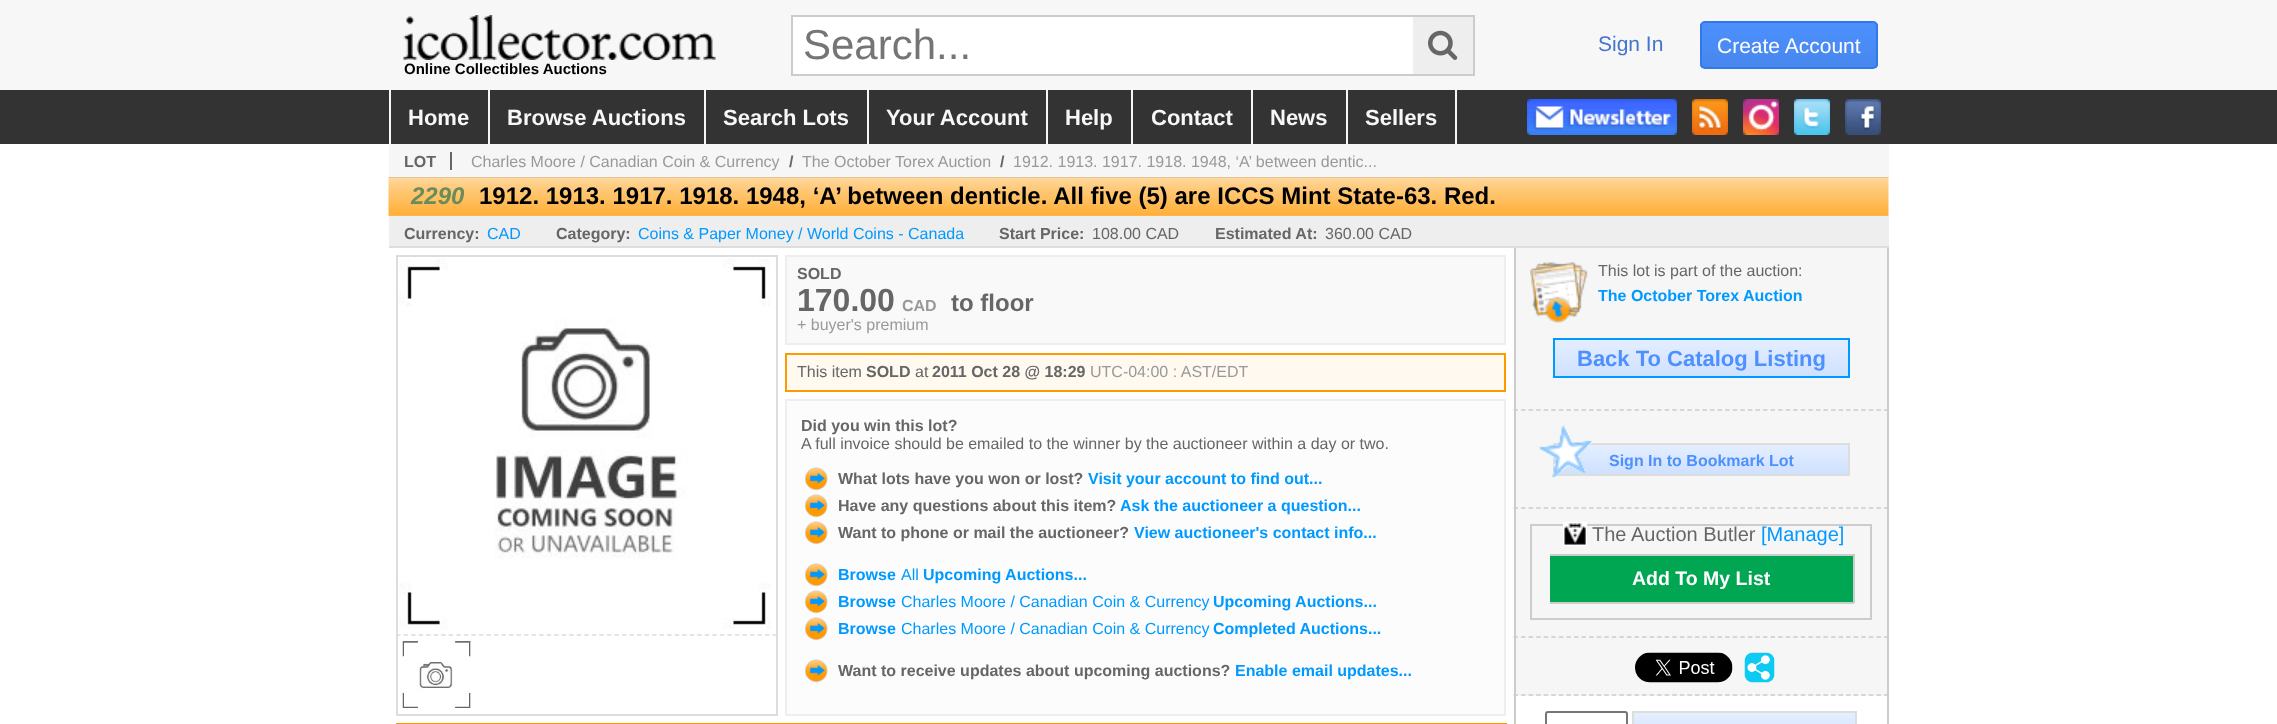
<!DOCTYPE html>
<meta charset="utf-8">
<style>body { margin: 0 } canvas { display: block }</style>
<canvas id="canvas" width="2277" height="724"></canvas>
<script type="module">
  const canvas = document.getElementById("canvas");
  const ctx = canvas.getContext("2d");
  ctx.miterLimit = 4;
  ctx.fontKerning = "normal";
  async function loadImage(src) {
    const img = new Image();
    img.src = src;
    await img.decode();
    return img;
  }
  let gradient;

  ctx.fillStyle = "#ffffff";
  ctx.fillRect(0, 0, 2277, 724);
  ctx.fillStyle = "#f7f7f7";
  ctx.fillRect(0, 0, 2277, 90);
  ctx.fillStyle = "#ffffff";
  ctx.fillRect(793, 17, 620, 57);
  ctx.fillStyle = "#cccccc";
  ctx.fillRect(791, 15, 684, 2);
  ctx.fillRect(791, 74, 622, 2);
  ctx.fillRect(791, 15, 2, 60);
  ctx.font = "42px Liberation Sans";
  ctx.fillStyle = "#757575";
  ctx.fillText("Search...", 803, 59);
  ctx.fillStyle = "#eeeeee";
  ctx.fillRect(1413, 17, 60, 57);
  ctx.fillStyle = "#cccccc";
  ctx.fillRect(1473, 15, 2, 60);
  ctx.fillRect(1413, 74, 62, 2);
  ctx.drawImage(await loadImage("img1.png"), 1428, 30, 30, 30);
  ctx.font = "21px Liberation Sans";
  ctx.fillStyle = "#4374ce";
  ctx.fillText("Sign In", 1598, 51);
  ctx.save();
  ctx.beginPath();
  ctx.roundRect(1700, 21, 178, 48, 5);
  ctx.clip();
  gradient = ctx.createLinearGradient(1789, 22, 1789, 68);
  gradient.addColorStop(0, "#4d90fe");
  gradient.addColorStop(1, "#4787ed");
  ctx.fillStyle = gradient;
  ctx.fillRect(1700, 23, 178, 45);
  ctx.restore();
  ctx.beginPath();
  ctx.roundRect(1701, 22, 176, 46, 4);
  ctx.strokeStyle = "#3079ed";
  ctx.lineWidth = 2;
  ctx.stroke();
  ctx.fillStyle = "#ffffff";
  ctx.fillText("Create Account", 1717, 53);
  ctx.drawImage(await loadImage("img2.png"), 403, 15, 313, 45);
  ctx.font = "bold 15px Liberation Sans";
  ctx.fillStyle = "#000000";
  ctx.fillText("Online Collectibles Auctions", 404, 74);
  ctx.fillStyle = "#333333";
  ctx.fillRect(0, 90, 2277, 54);
  ctx.fillStyle = "#f7f7f7";
  ctx.fillRect(389, 90, 2, 54);
  ctx.font = "bold 22px Liberation Sans";
  ctx.fillText("Home", 408, 125);
  ctx.fillRect(488, 90, 2, 54);
  ctx.fillText("Browse Auctions", 507, 125);
  ctx.fillRect(704, 90, 2, 54);
  ctx.fillText("Search Lots", 723, 125);
  ctx.fillRect(867, 90, 2, 54);
  ctx.fillText("Your Account", 886, 125);
  ctx.fillRect(1046, 90, 2, 54);
  ctx.fillText("Help", 1065, 125);
  ctx.fillRect(1131, 90, 2, 54);
  ctx.fillText("Contact", 1151, 125);
  ctx.fillRect(1251, 90, 2, 54);
  ctx.fillText("News", 1270, 125);
  ctx.fillRect(1455, 90, 2, 54);
  ctx.fillRect(1346, 90, 2, 54);
  ctx.fillText("Sellers", 1365, 125);
  ctx.drawImage(await loadImage("img3.png"), 1527, 99, 150, 36);
  ctx.drawImage(await loadImage("img4.png"), 1692, 99, 36, 36);
  ctx.drawImage(await loadImage("img5.png"), 1743, 99, 36, 36);
  ctx.drawImage(await loadImage("img6.png"), 1794, 99, 36, 36);
  ctx.drawImage(await loadImage("img7.png"), 1845, 99, 36, 36);
  ctx.fillStyle = "#f6f6f6";
  ctx.fillRect(389, 144, 1500, 33);
  ctx.font = "bold 16px Liberation Sans";
  ctx.fillStyle = "#666666";
  ctx.fillText("LOT", 404, 167);
  ctx.fillRect(450, 152, 2, 18);
  ctx.font = "16px Liberation Sans";
  ctx.fillStyle = "#999999";
  ctx.fillText("Charles Moore / Canadian Coin & Currency", 471, 167);
  ctx.font = "bold 16px Liberation Sans";
  ctx.fillStyle = "#666666";
  ctx.fillText("/", 789, 167);
  ctx.font = "16px Liberation Sans";
  ctx.fillStyle = "#999999";
  ctx.fillText("The October Torex Auction", 802, 167);
  ctx.font = "bold 16px Liberation Sans";
  ctx.fillStyle = "#666666";
  ctx.fillText("/", 1000, 167);
  ctx.font = "16px Liberation Sans";
  ctx.fillStyle = "#999999";
  ctx.fillText("1912. 1913. 1917. 1918. 1948, ‘A’ between dentic...", 1013, 167);
  ctx.drawImage(await loadImage("img8.png"), 388, 177, 1501, 39);
  ctx.font = "italic bold 24px Liberation Sans";
  ctx.fillStyle = "#698c5b";
  ctx.fillText("2290", 411, 204);
  ctx.font = "bold 24px Liberation Sans";
  ctx.fillStyle = "#000000";
  ctx.fillText("1912. 1913. 1917. 1918. 1948, ‘A’ between denticle. All five (5) are ICCS Mint State-63. Red.", 479, 204);
  ctx.fillStyle = "#eeeeee";
  ctx.fillRect(389, 216, 1500, 30);
  ctx.fillStyle = "#dddddd";
  ctx.fillRect(389, 246, 1500, 2);
  ctx.font = "bold 16px Liberation Sans";
  ctx.fillStyle = "#666666";
  ctx.fillText("Currency:", 404, 239);
  ctx.font = "16px Liberation Sans";
  ctx.fillStyle = "#0099ff";
  ctx.fillText("CAD", 487, 239);
  ctx.font = "bold 16px Liberation Sans";
  ctx.fillStyle = "#666666";
  ctx.fillText("Category:", 556, 239);
  ctx.font = "16px Liberation Sans";
  ctx.fillStyle = "#0099ff";
  ctx.fillText("Coins & Paper Money / World Coins - Canada", 638, 239);
  ctx.font = "bold 16px Liberation Sans";
  ctx.fillStyle = "#666666";
  ctx.fillText("Start Price:", 999, 239);
  ctx.font = "16px Liberation Sans";
  ctx.fillText("108.00 CAD", 1092, 239);
  ctx.font = "bold 16px Liberation Sans";
  ctx.fillText("Estimated At:", 1215, 239);
  ctx.font = "16px Liberation Sans";
  ctx.fillText("360.00 CAD", 1325, 239);
  ctx.fillStyle = "#dddddd";
  ctx.fillRect(396, 255, 381, 2);
  ctx.fillRect(776, 255, 2, 380);
  ctx.fillRect(396, 255, 2, 380);
  ctx.drawImage(await loadImage("img9.png"), 399, 258, 372, 372);
  ctx.beginPath();
  ctx.moveTo(396, 635);
  ctx.lineTo(777, 635);
  ctx.strokeStyle = "#dddddd";
  ctx.lineWidth = 1.5;
  ctx.setLineDash([4.5, 3.03]);
  ctx.stroke();
  ctx.fillRect(776, 635, 2, 81);
  ctx.fillRect(396, 714, 381, 2);
  ctx.fillRect(396, 635, 2, 81);
  ctx.drawImage(await loadImage("img10.png"), 401, 639, 71, 69);
  ctx.fillStyle = "#f9f9f9";
  ctx.beginPath();
  ctx.rect(786, 256, 719, 88);
  ctx.fill();
  ctx.strokeStyle = "#eeeeee";
  ctx.lineWidth = 2;
  ctx.setLineDash([]);
  ctx.stroke();
  ctx.font = "bold 16px Liberation Sans";
  ctx.fillStyle = "#666666";
  ctx.fillText("SOLD", 797, 279);
  ctx.font = "bold 32px Liberation Sans";
  ctx.fillText("170.00", 797, 311);
  ctx.font = "bold 16px Liberation Sans";
  ctx.fillStyle = "#999999";
  ctx.fillText("CAD", 902, 311);
  ctx.font = "bold 24px Liberation Sans";
  ctx.fillStyle = "#666666";
  ctx.fillText("to floor", 951, 311);
  ctx.font = "16px Liberation Sans";
  ctx.fillStyle = "#999999";
  ctx.fillText("+ buyer's premium", 797, 330);
  ctx.fillStyle = "#fff9f0";
  ctx.beginPath();
  ctx.rect(786, 354, 719, 37);
  ctx.fill();
  ctx.strokeStyle = "#ff9900";
  ctx.stroke();
  ctx.fillStyle = "#666666";
  ctx.fillText("This item", 797, 377);
  ctx.font = "bold 16px Liberation Sans";
  ctx.fillText("SOLD", 866, 377);
  ctx.font = "16px Liberation Sans";
  ctx.fillText("at", 915, 377);
  ctx.font = "bold 16px Liberation Sans";
  ctx.fillText("2011 Oct 28 @ 18:29", 932, 377);
  ctx.font = "16px Liberation Sans";
  ctx.fillStyle = "#999999";
  ctx.fillText("UTC-04:00 : AST/EDT", 1090, 377);
  ctx.fillStyle = "#fcfcfc";
  ctx.beginPath();
  ctx.rect(786, 400, 719, 315);
  ctx.fill();
  ctx.strokeStyle = "#eeeeee";
  ctx.stroke();
  ctx.font = "bold 16px Liberation Sans";
  ctx.fillStyle = "#666666";
  ctx.fillText("Did you win this lot?", 801, 431);
  ctx.font = "16px Liberation Sans";
  ctx.fillText("A full invoice should be emailed to the winner by the auctioneer within a day or two.", 801, 449);
  ctx.drawImage(await loadImage("img11.png"), 805, 467, 23, 24);
  ctx.font = "bold 16px Liberation Sans";
  ctx.fillText("What lots have you won or lost?", 838, 484);
  ctx.fillStyle = "#0099ff";
  ctx.fillText("Visit your account to find out...", 1088, 484);
  ctx.drawImage(await loadImage("img11.png"), 805, 494, 23, 24);
  ctx.fillStyle = "#666666";
  ctx.fillText("Have any questions about this item?", 838, 511);
  ctx.fillStyle = "#0099ff";
  ctx.fillText("Ask the auctioneer a question...", 1120, 511);
  ctx.drawImage(await loadImage("img11.png"), 805, 521, 23, 24);
  ctx.fillStyle = "#666666";
  ctx.fillText("Want to phone or mail the auctioneer?", 838, 538);
  ctx.fillStyle = "#0099ff";
  ctx.fillText("View auctioneer's contact info...", 1134, 538);
  ctx.drawImage(await loadImage("img11.png"), 805, 563, 23, 24);
  ctx.fillText("Browse", 838, 580);
  ctx.font = "16px Liberation Sans";
  ctx.fillText("All", 901, 580);
  ctx.font = "bold 16px Liberation Sans";
  ctx.fillText("Upcoming Auctions...", 923, 580);
  ctx.drawImage(await loadImage("img11.png"), 805, 590, 23, 24);
  ctx.fillText("Browse", 838, 607);
  ctx.font = "16px Liberation Sans";
  ctx.fillText("Charles Moore / Canadian Coin & Currency", 901, 607);
  ctx.font = "bold 16px Liberation Sans";
  ctx.fillText("Upcoming Auctions...", 1213, 607);
  ctx.drawImage(await loadImage("img11.png"), 805, 617, 23, 24);
  ctx.fillText("Browse", 838, 634);
  ctx.font = "16px Liberation Sans";
  ctx.fillText("Charles Moore / Canadian Coin & Currency", 901, 634);
  ctx.font = "bold 16px Liberation Sans";
  ctx.fillText("Completed Auctions...", 1213, 634);
  ctx.drawImage(await loadImage("img11.png"), 805, 659, 23, 24);
  ctx.fillStyle = "#666666";
  ctx.fillText("Want to receive updates about upcoming auctions?", 838, 676);
  ctx.fillStyle = "#0099ff";
  ctx.fillText("Enable email updates...", 1235, 676);
  ctx.fillStyle = "#ff9900";
  ctx.fillRect(396, 723, 1111, 1);
  ctx.fillStyle = "#f6f6f6";
  ctx.fillRect(1516, 248, 371, 448);
  ctx.fillStyle = "#cccccc";
  ctx.fillRect(1887, 248, 2, 476);
  ctx.beginPath();
  ctx.moveTo(1513.5, 410);
  ctx.lineTo(1888.5, 410);
  ctx.strokeStyle = "#cccccc";
  ctx.lineWidth = 1.5;
  ctx.setLineDash([4.5, 3.06]);
  ctx.stroke();
  ctx.fillRect(1514, 248, 2, 163);
  ctx.drawImage(await loadImage("img12.png"), 1530, 262, 58, 61);
  ctx.font = "16px Liberation Sans";
  ctx.fillStyle = "#666666";
  ctx.fillText("This lot is part of the auction:", 1598, 276);
  ctx.font = "bold 16px Liberation Sans";
  ctx.fillStyle = "#0099ff";
  ctx.fillText("The October Torex Auction", 1598, 301);
  gradient = ctx.createLinearGradient(1701, 339, 1701, 377);
  gradient.addColorStop(0, "#e4eeff");
  gradient.addColorStop(1, "#cfe1ff");
  ctx.fillStyle = gradient;
  ctx.fillRect(1555, 340, 293, 36);
  ctx.strokeStyle = "#0099ff";
  ctx.lineWidth = 2;
  ctx.setLineDash([]);
  ctx.strokeRect(1554, 339, 295, 38);
  ctx.font = "bold 22px Liberation Sans";
  ctx.fillStyle = "#4d90fe";
  ctx.fillText("Back To Catalog Listing", 1577, 366);
  ctx.beginPath();
  ctx.moveTo(1513.5, 508);
  ctx.lineTo(1888.5, 508);
  ctx.strokeStyle = "#cccccc";
  ctx.lineWidth = 1.5;
  ctx.setLineDash([4.5, 3.06]);
  ctx.stroke();
  ctx.fillStyle = "#cccccc";
  ctx.fillRect(1514, 411, 2, 98);
  gradient = ctx.createLinearGradient(1701, 444, 1701, 474);
  gradient.addColorStop(0, "#e4eeff");
  gradient.addColorStop(1, "#cfe1ff");
  ctx.fillStyle = gradient;
  ctx.fillRect(1555, 445, 293, 29);
  ctx.strokeStyle = "#dddddd";
  ctx.lineWidth = 2;
  ctx.setLineDash([]);
  ctx.strokeRect(1554, 444, 295, 31);
  ctx.drawImage(await loadImage("img13.png"), 1538, 425, 54, 53);
  ctx.font = "bold 16px Liberation Sans";
  ctx.fillStyle = "#4d90fe";
  ctx.fillText("Sign In to Bookmark Lot", 1609, 466);
  ctx.beginPath();
  ctx.moveTo(1513.5, 637);
  ctx.lineTo(1888.5, 637);
  ctx.strokeStyle = "#cccccc";
  ctx.lineWidth = 1.5;
  ctx.setLineDash([4.5, 3.06]);
  ctx.stroke();
  ctx.fillStyle = "#cccccc";
  ctx.fillRect(1514, 509, 2, 129);
  ctx.lineWidth = 2;
  ctx.setLineDash([]);
  ctx.strokeRect(1531, 525, 340, 94);
  ctx.drawImage(await loadImage("img14.png"), 1563, 522, 24, 24);
  ctx.font = "20px Liberation Sans";
  ctx.fillStyle = "#666666";
  ctx.fillText("The Auction Butler", 1592, 541);
  ctx.fillStyle = "#0099ff";
  ctx.fillText("[Manage]", 1761, 541);
  ctx.fillStyle = "#00a651";
  ctx.fillRect(1550, 556, 303, 46);
  ctx.fillStyle = "#cccccc";
  ctx.fillRect(1550, 554, 304, 2);
  ctx.fillRect(1853, 554, 2, 49);
  ctx.fillRect(1550, 602, 304, 2);
  ctx.font = "bold 19.5px Liberation Sans";
  ctx.fillStyle = "#ffffff";
  ctx.fillText("Add To My List", 1632, 585);
  ctx.beginPath();
  ctx.moveTo(1513.5, 695);
  ctx.lineTo(1888.5, 695);
  ctx.lineWidth = 1.5;
  ctx.setLineDash([4.5, 3.06]);
  ctx.stroke();
  ctx.fillStyle = "#cccccc";
  ctx.fillRect(1514, 638, 2, 86);
  ctx.drawImage(await loadImage("img15.png"), 1635, 652, 98, 31);
  ctx.drawImage(await loadImage("img16.png"), 1744, 652, 31, 31);
  ctx.beginPath();
  ctx.roundRect(1546, 712, 81, 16, 2);
  ctx.strokeStyle = "#767676";
  ctx.lineWidth = 2;
  ctx.setLineDash([]);
  ctx.stroke();
  gradient = ctx.createLinearGradient(1745, 713, 1745, 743);
  gradient.addColorStop(0, "#e4eeff");
  gradient.addColorStop(1, "#cfe1ff");
  ctx.fillStyle = gradient;
  ctx.fillRect(1634, 713, 221, 11);
  ctx.strokeStyle = "#dddddd";
  ctx.strokeRect(1633, 712, 223, 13);
</script>
